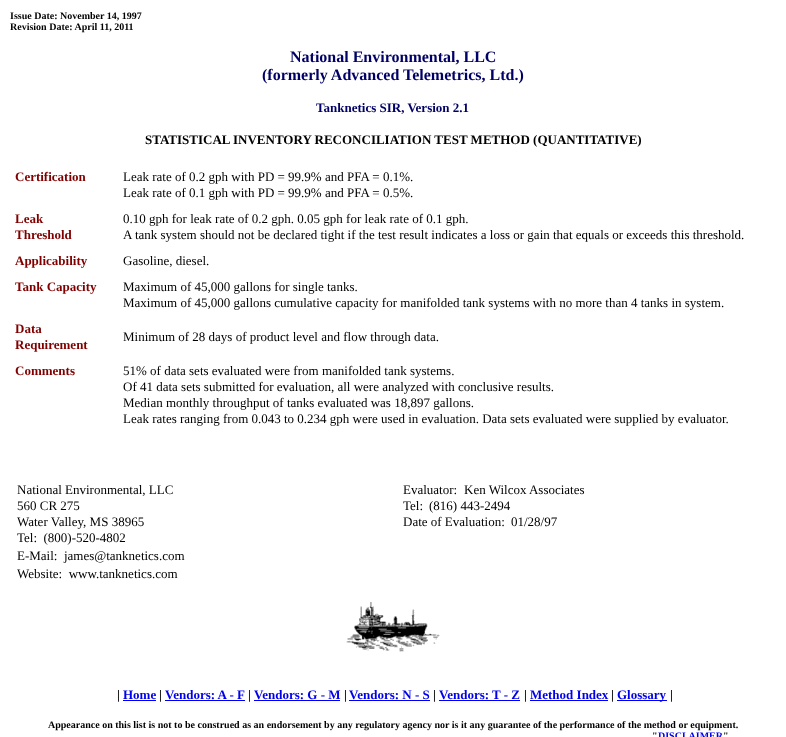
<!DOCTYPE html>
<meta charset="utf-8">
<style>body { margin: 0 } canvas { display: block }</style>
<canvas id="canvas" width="786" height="737"></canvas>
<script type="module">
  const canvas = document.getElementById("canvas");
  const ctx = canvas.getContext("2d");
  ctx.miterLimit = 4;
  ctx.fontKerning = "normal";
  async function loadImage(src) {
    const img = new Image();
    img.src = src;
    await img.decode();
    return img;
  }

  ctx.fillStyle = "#ffffff";
  ctx.fillRect(0, 0, 786, 737);
  ctx.font = "bold 10px Liberation Serif";
  ctx.fillStyle = "#000000";
  ctx.fillText("Issue Date: November 14, 1997", 10, 19);
  ctx.fillText("Revision Date: April 11, 2011", 10, 30);
  ctx.font = "bold 16px Liberation Serif";
  ctx.fillStyle = "#000066";
  ctx.fillText("National Environmental, LLC", 290, 62);
  ctx.fillText("(formerly Advanced Telemetrics, Ltd.)", 262, 80);
  ctx.font = "bold 13px Liberation Serif";
  ctx.fillText("Tanknetics SIR, Version 2.1", 316, 112);
  ctx.fillStyle = "#000000";
  ctx.fillText("STATISTICAL INVENTORY RECONCILIATION TEST METHOD (QUANTITATIVE)", 145, 144);
  ctx.fillStyle = "#800000";
  ctx.fillText("Certification", 15, 181);
  ctx.font = "13px Liberation Serif";
  ctx.fillStyle = "#000000";
  ctx.fillText("Leak rate of 0.2 gph with PD = 99.9% and PFA = 0.1%.", 123, 181);
  ctx.fillText("Leak rate of 0.1 gph with PD = 99.9% and PFA = 0.5%.", 123, 197);
  ctx.font = "bold 13px Liberation Serif";
  ctx.fillStyle = "#800000";
  ctx.fillText("Leak", 15, 223);
  ctx.fillText("Threshold", 15, 239);
  ctx.font = "13px Liberation Serif";
  ctx.fillStyle = "#000000";
  ctx.fillText("0.10 gph for leak rate of 0.2 gph. 0.05 gph for leak rate of 0.1 gph.", 123, 223);
  ctx.fillText("A tank system should not be declared tight if the test result indicates a loss or gain that equals or exceeds this threshold.", 123, 239);
  ctx.font = "bold 13px Liberation Serif";
  ctx.fillStyle = "#800000";
  ctx.fillText("Applicability", 15, 265);
  ctx.font = "13px Liberation Serif";
  ctx.fillStyle = "#000000";
  ctx.fillText("Gasoline, diesel.", 123, 265);
  ctx.font = "bold 13px Liberation Serif";
  ctx.fillStyle = "#800000";
  ctx.fillText("Tank Capacity", 15, 291);
  ctx.font = "13px Liberation Serif";
  ctx.fillStyle = "#000000";
  ctx.fillText("Maximum of 45,000 gallons for single tanks.", 123, 291);
  ctx.fillText("Maximum of 45,000 gallons cumulative capacity for manifolded tank systems with no more than 4 tanks in system.", 123, 307);
  ctx.font = "bold 13px Liberation Serif";
  ctx.fillStyle = "#800000";
  ctx.fillText("Data", 15, 333);
  ctx.fillText("Requirement", 15, 349);
  ctx.font = "13px Liberation Serif";
  ctx.fillStyle = "#000000";
  ctx.fillText("Minimum of 28 days of product level and flow through data.", 123, 341);
  ctx.font = "bold 13px Liberation Serif";
  ctx.fillStyle = "#800000";
  ctx.fillText("Comments", 15, 375);
  ctx.font = "13px Liberation Serif";
  ctx.fillStyle = "#000000";
  ctx.fillText("51% of data sets evaluated were from manifolded tank systems.", 123, 375);
  ctx.fillText("Of 41 data sets submitted for evaluation, all were analyzed with conclusive results.", 123, 391);
  ctx.fillText("Median monthly throughput of tanks evaluated was 18,897 gallons.", 123, 407);
  ctx.fillText("Leak rates ranging from 0.043 to 0.234 gph were used in evaluation. Data sets evaluated were supplied by evaluator.", 123, 423);
  ctx.fillText("National Environmental, LLC", 17, 494);
  ctx.fillText("Evaluator:", 403, 494);
  ctx.fillText("Ken Wilcox Associates", 464, 494);
  ctx.fillText("560 CR 275", 17, 510);
  ctx.fillText("Tel:", 403, 510);
  ctx.fillText("(816) 443-2494", 429, 510);
  ctx.fillText("Water Valley, MS 38965", 17, 526);
  ctx.fillText("Date of Evaluation:", 403, 526);
  ctx.fillText("01/28/97", 511, 526);
  ctx.fillText("Tel:  (800)-520-4802", 17, 542);
  ctx.fillText("E-Mail:  james@tanknetics.com", 17, 560);
  ctx.fillText("Website:  www.tanknetics.com", 17, 578);
  ctx.drawImage(await loadImage("img1.png"), 346, 602, 94, 50);
  ctx.font = "bold 13px Liberation Serif";
  ctx.fillText("|", 117, 699);
  ctx.fillStyle = "#0000ee";
  ctx.fillText("Home", 123, 699);
  ctx.fillRect(123, 700, 33, 1);
  ctx.fillStyle = "#000000";
  ctx.fillText("|", 159, 699);
  ctx.fillStyle = "#0000ee";
  ctx.fillText("Vendors: A - F", 165, 699);
  ctx.fillRect(165, 700, 80, 1);
  ctx.fillStyle = "#000000";
  ctx.fillText("|", 248, 699);
  ctx.fillStyle = "#0000ee";
  ctx.fillText("Vendors: G - M", 254, 699);
  ctx.fillRect(254, 700, 86, 1);
  ctx.fillStyle = "#000000";
  ctx.fillText("|", 344, 699);
  ctx.fillStyle = "#0000ee";
  ctx.fillText("Vendors: N - S", 349, 699);
  ctx.fillRect(349, 700, 81, 1);
  ctx.fillStyle = "#000000";
  ctx.fillText("|", 433, 699);
  ctx.fillStyle = "#0000ee";
  ctx.fillText("Vendors: T - Z", 439, 699);
  ctx.fillRect(439, 700, 81, 1);
  ctx.fillStyle = "#000000";
  ctx.fillText("|", 524, 699);
  ctx.fillStyle = "#0000ee";
  ctx.fillText("Method Index", 530, 699);
  ctx.fillRect(530, 700, 78, 1);
  ctx.fillStyle = "#000000";
  ctx.fillText("|", 611, 699);
  ctx.fillStyle = "#0000ee";
  ctx.fillRect(617, 700, 50, 1);
  ctx.fillText("Glossary", 617, 699);
  ctx.fillStyle = "#000000";
  ctx.fillText("|", 670, 699);
  ctx.font = "bold 10px Liberation Serif";
  ctx.fillText("Appearance on this list is not to be construed as an endorsement by any regulatory agency nor is it any guarantee of the performance of the method or equipment.", 48, 728);
  ctx.fillText("\"", 652, 739);
  ctx.fillStyle = "#0000ee";
  ctx.fillText("DISCLAIMER", 658, 739);
  ctx.fillStyle = "#000000";
  ctx.fillText("\"", 723, 739);
</script>
